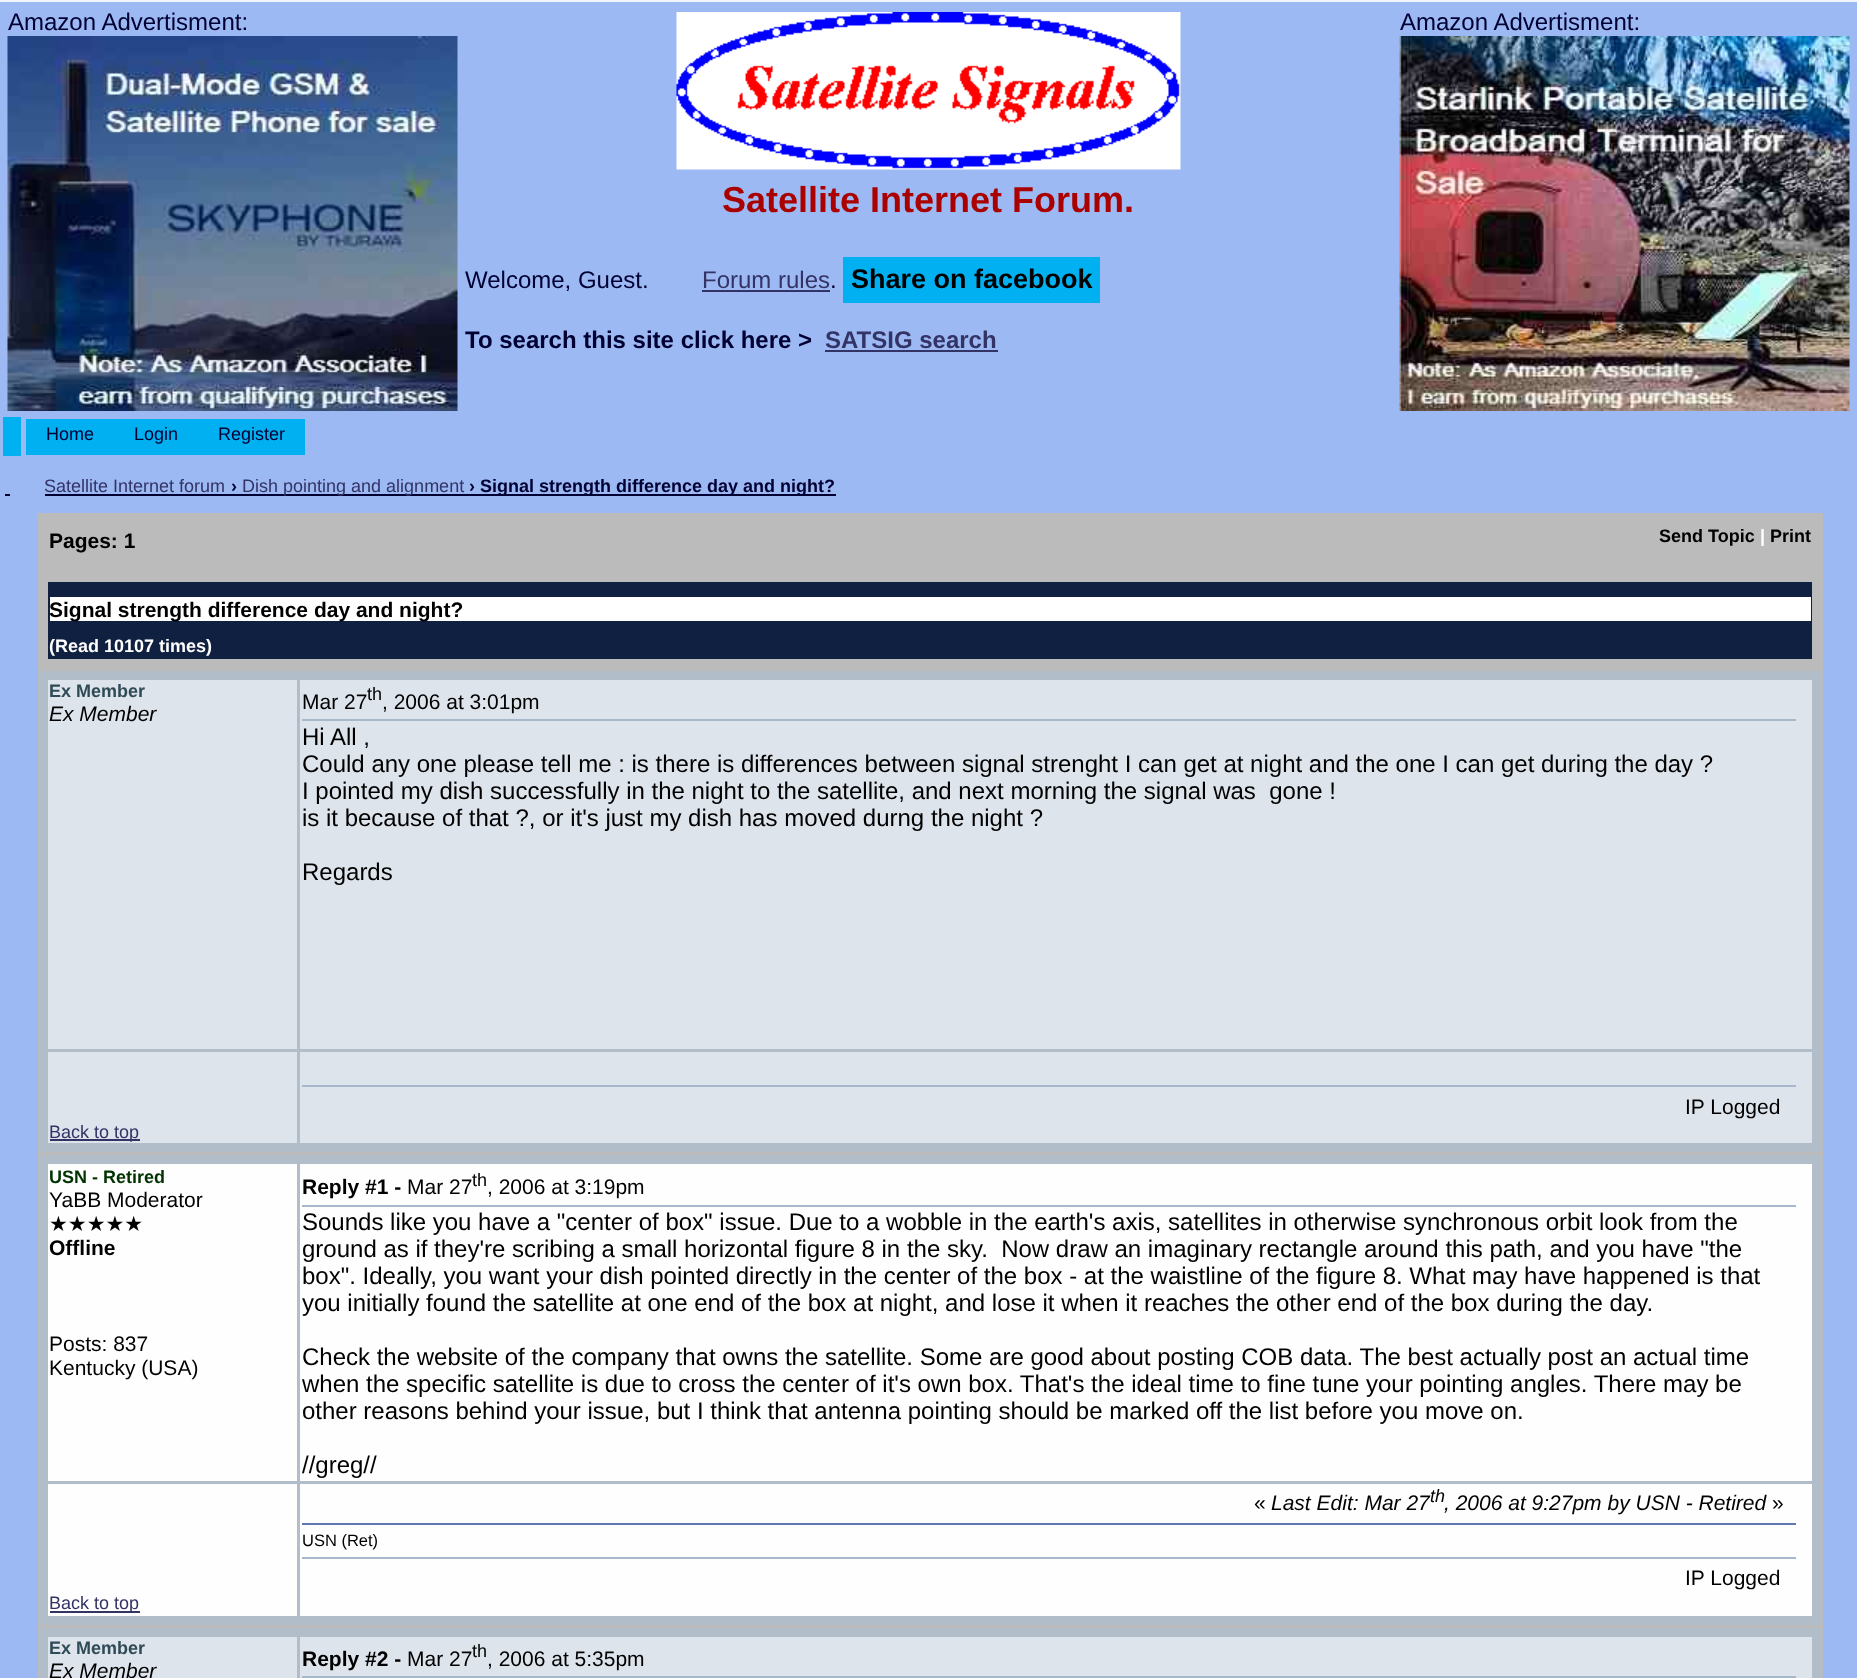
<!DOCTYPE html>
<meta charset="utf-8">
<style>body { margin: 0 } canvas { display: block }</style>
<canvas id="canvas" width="1857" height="1678"></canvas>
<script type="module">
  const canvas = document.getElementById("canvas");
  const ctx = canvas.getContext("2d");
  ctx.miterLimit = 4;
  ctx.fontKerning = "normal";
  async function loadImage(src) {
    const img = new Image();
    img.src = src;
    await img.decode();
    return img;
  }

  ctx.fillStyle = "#f2f6f9";
  ctx.fillRect(0, 0, 1857, 1678);
  ctx.fillStyle = "#9cb9f3";
  ctx.fillRect(0, 2, 1857, 1676);
  ctx.font = "24px Liberation Sans";
  ctx.fillStyle = "#000033";
  ctx.fillText("Amazon Advertisment:", 8, 30);
  ctx.drawImage(await loadImage("img1.png"), 7, 36, 451, 375);
  ctx.fillText("Amazon Advertisment:", 1400, 30);
  ctx.drawImage(await loadImage("img2.png"), 1399, 36, 451, 375);
  ctx.drawImage(await loadImage("img3.png"), 676, 12, 505, 158);
  ctx.font = "bold 36px Liberation Sans";
  ctx.fillStyle = "#aa0000";
  ctx.fillText("Satellite Internet Forum.", 722, 212);
  ctx.font = "24px Liberation Sans";
  ctx.fillStyle = "#000033";
  ctx.fillText("Welcome, Guest.", 465, 288);
  ctx.fillStyle = "#333366";
  ctx.fillText("Forum rules", 702, 288);
  ctx.fillStyle = "#000033";
  ctx.fillText(".", 830, 288);
  ctx.fillStyle = "#333366";
  ctx.fillRect(702, 290, 128, 2);
  ctx.fillStyle = "#00b0f0";
  ctx.fillRect(843, 257, 257, 46);
  ctx.font = "bold 27px Liberation Sans";
  ctx.fillStyle = "#000000";
  ctx.fillText("Share on facebook", 851, 288);
  ctx.font = "bold 24px Liberation Sans";
  ctx.fillStyle = "#000033";
  ctx.fillText("To search this site click here >", 465, 348);
  ctx.fillStyle = "#333366";
  ctx.fillText("SATSIG search", 825, 348);
  ctx.fillRect(825, 350, 173, 2);
  ctx.fillStyle = "#00b0f0";
  ctx.fillRect(3, 417, 18, 39);
  ctx.fillRect(26, 419, 279, 36);
  ctx.font = "18px Liberation Sans";
  ctx.fillStyle = "#000033";
  ctx.fillText("Home", 46, 440);
  ctx.fillText("Login", 134, 440);
  ctx.fillText("Register", 218, 440);
  ctx.fillRect(5, 494, 5, 2);
  ctx.fillStyle = "#333366";
  ctx.fillText("Satellite Internet forum", 44, 492);
  ctx.font = "bold 18px Liberation Sans";
  ctx.fillStyle = "#000033";
  ctx.fillText("›", 231, 492);
  ctx.fillRect(45, 494, 791, 2);
  ctx.font = "18px Liberation Sans";
  ctx.fillStyle = "#333366";
  ctx.fillText("Dish pointing and alignment", 242, 492);
  ctx.font = "bold 18px Liberation Sans";
  ctx.fillStyle = "#000033";
  ctx.fillText("› Signal strength difference day and night?", 469, 492);
  ctx.fillStyle = "#bbbbbb";
  ctx.fillRect(38, 513, 1785, 1165);
  ctx.font = "bold 21px Liberation Sans";
  ctx.fillStyle = "#000000";
  ctx.fillText("Pages: 1", 49, 548);
  ctx.font = "bold 18px Liberation Sans";
  ctx.fillText("Send Topic", 1659, 542);
  ctx.fillStyle = "#ffffff";
  ctx.fillText("|", 1760, 542);
  ctx.fillStyle = "#000000";
  ctx.fillText("Print", 1770, 542);
  ctx.fillStyle = "#102040";
  ctx.fillRect(48, 582, 1764, 77);
  ctx.fillStyle = "#ffffff";
  ctx.fillRect(50, 597, 1761, 24);
  ctx.font = "bold 21px Liberation Sans";
  ctx.fillStyle = "#000000";
  ctx.fillText("Signal strength difference day and night?", 49, 617);
  ctx.font = "bold 18px Liberation Sans";
  ctx.fillStyle = "#ffffff";
  ctx.fillText("(Read 10107 times)", 49, 652);
  ctx.fillStyle = "#b1bdc9";
  ctx.fillRect(39, 671, 1782, 481);
  ctx.fillStyle = "#dee4ec";
  ctx.fillRect(48, 680, 249, 369);
  ctx.fillStyle = "#304b58";
  ctx.fillText("Ex Member", 49, 697);
  ctx.font = "italic 21px Liberation Sans";
  ctx.fillStyle = "#000000";
  ctx.fillText("Ex Member", 49, 721);
  ctx.fillStyle = "#dee4ec";
  ctx.fillRect(300, 680, 1512, 369);
  ctx.fillStyle = "#a7b8cc";
  ctx.fillRect(302, 719, 1494, 2);
  ctx.font = "21px Liberation Sans";
  ctx.fillStyle = "#000000";
  ctx.fillText("Mar 27", 302, 709);
  ctx.font = "18px Liberation Sans";
  ctx.fillText("th", 367, 700);
  ctx.font = "21px Liberation Sans";
  ctx.fillText(", 2006 at 3:01pm", 382, 709);
  ctx.font = "24px Liberation Sans";
  ctx.fillText("Hi All ,", 302, 745);
  ctx.fillText("Could any one please tell me : is there is differences between signal strenght I can get at night and the one I can get during the day ?", 302, 772);
  ctx.fillText("I pointed my dish successfully in the night to the satellite, and next morning the signal was  gone !", 302, 799);
  ctx.fillText("is it because of that ?, or it's just my dish has moved durng the night ?", 302, 826);
  ctx.fillText("Regards", 302, 880);
  ctx.fillStyle = "#dee4ec";
  ctx.fillRect(300, 1052, 1512, 91);
  ctx.fillStyle = "#a7b8cc";
  ctx.fillRect(302, 1085, 1494, 2);
  ctx.font = "21px Liberation Sans";
  ctx.fillStyle = "#000000";
  ctx.fillText("IP Logged", 1685, 1114);
  ctx.fillStyle = "#dee4ec";
  ctx.fillRect(48, 1052, 249, 91);
  ctx.fillStyle = "#333366";
  ctx.fillRect(50, 1139, 90, 2);
  ctx.font = "18px Liberation Sans";
  ctx.fillText("Back to top", 49, 1138);
  ctx.fillStyle = "#b1bdc9";
  ctx.fillRect(39, 1155, 1782, 470);
  ctx.fillStyle = "#fefefe";
  ctx.fillRect(48, 1164, 249, 317);
  ctx.font = "bold 18px Liberation Sans";
  ctx.fillStyle = "#003300";
  ctx.fillText("USN - Retired", 49, 1183);
  ctx.font = "21px Liberation Sans";
  ctx.fillStyle = "#000000";
  ctx.fillText("YaBB Moderator", 49, 1207);
  ctx.font = "21px DejaVu Sans";
  ctx.fillText("★★★★★", 49, 1231);
  ctx.font = "bold 21px Liberation Sans";
  ctx.fillText("Offline", 49, 1255);
  ctx.font = "21px Liberation Sans";
  ctx.fillText("Posts: 837", 49, 1351);
  ctx.fillText("Kentucky (USA)", 49, 1375);
  ctx.fillStyle = "#fefefe";
  ctx.fillRect(300, 1164, 1512, 317);
  ctx.fillStyle = "#a7b8cc";
  ctx.fillRect(302, 1205, 1494, 2);
  ctx.font = "bold 21px Liberation Sans";
  ctx.fillStyle = "#000000";
  ctx.fillText("Reply #1 -", 302, 1194);
  ctx.font = "21px Liberation Sans";
  ctx.fillText("Mar 27", 407, 1194);
  ctx.font = "18px Liberation Sans";
  ctx.fillText("th", 472, 1186);
  ctx.font = "21px Liberation Sans";
  ctx.fillText(", 2006 at 3:19pm", 487, 1194);
  ctx.font = "24px Liberation Sans";
  ctx.fillText("Sounds like you have a \"center of box\" issue. Due to a wobble in the earth's axis, satellites in otherwise synchronous orbit look from the", 302, 1230);
  ctx.fillText("ground as if they're scribing a small horizontal figure 8 in the sky.  Now draw an imaginary rectangle around this path, and you have \"the", 302, 1257);
  ctx.fillText("box\". Ideally, you want your dish pointed directly in the center of the box - at the waistline of the figure 8. What may have happened is that", 302, 1284);
  ctx.fillText("you initially found the satellite at one end of the box at night, and lose it when it reaches the other end of the box during the day.", 302, 1311);
  ctx.fillText("Check the website of the company that owns the satellite. Some are good about posting COB data. The best actually post an actual time", 302, 1365);
  ctx.fillText("when the specific satellite is due to cross the center of it's own box. That's the ideal time to fine tune your pointing angles. There may be", 302, 1392);
  ctx.fillText("other reasons behind your issue, but I think that antenna pointing should be marked off the list before you move on.", 302, 1419);
  ctx.fillText("//greg//", 302, 1473);
  ctx.fillStyle = "#fefefe";
  ctx.fillRect(300, 1484, 1512, 132);
  ctx.font = "21px Liberation Sans";
  ctx.fillStyle = "#000000";
  ctx.fillText("«", 1254, 1510);
  ctx.font = "italic 21px Liberation Sans";
  ctx.fillText("Last Edit: Mar 27", 1271, 1510);
  ctx.font = "italic 18px Liberation Sans";
  ctx.fillText("th", 1430, 1502);
  ctx.font = "italic 21px Liberation Sans";
  ctx.fillText(", 2006 at 9:27pm by USN - Retired", 1444, 1510);
  ctx.font = "21px Liberation Sans";
  ctx.fillText("»", 1772, 1510);
  ctx.fillStyle = "#6078b0";
  ctx.fillRect(302, 1523, 1494, 2);
  ctx.font = "16.5px Liberation Sans";
  ctx.fillStyle = "#000000";
  ctx.fillText("USN (Ret)", 302, 1546);
  ctx.fillStyle = "#a7b8cc";
  ctx.fillRect(302, 1557, 1494, 2);
  ctx.font = "21px Liberation Sans";
  ctx.fillStyle = "#000000";
  ctx.fillText("IP Logged", 1685, 1585);
  ctx.fillStyle = "#fefefe";
  ctx.fillRect(48, 1484, 249, 132);
  ctx.fillStyle = "#333366";
  ctx.fillRect(50, 1611, 90, 2);
  ctx.font = "18px Liberation Sans";
  ctx.fillText("Back to top", 49, 1609);
  ctx.fillStyle = "#b1bdc9";
  ctx.fillRect(39, 1628, 1782, 50);
  ctx.fillStyle = "#dee4ec";
  ctx.fillRect(48, 1637, 249, 41);
  ctx.font = "bold 18px Liberation Sans";
  ctx.fillStyle = "#304b58";
  ctx.fillText("Ex Member", 49, 1654);
  ctx.font = "italic 21px Liberation Sans";
  ctx.fillStyle = "#000000";
  ctx.fillText("Ex Member", 49, 1678);
  ctx.fillStyle = "#dee4ec";
  ctx.fillRect(300, 1637, 1512, 41);
  ctx.fillStyle = "#a7b8cc";
  ctx.fillRect(302, 1676, 1494, 2);
  ctx.font = "bold 21px Liberation Sans";
  ctx.fillStyle = "#000000";
  ctx.fillText("Reply #2 -", 302, 1666);
  ctx.font = "21px Liberation Sans";
  ctx.fillText("Mar 27", 407, 1666);
  ctx.font = "18px Liberation Sans";
  ctx.fillText("th", 472, 1657);
  ctx.font = "21px Liberation Sans";
  ctx.fillText(", 2006 at 5:35pm", 487, 1666);
</script>
